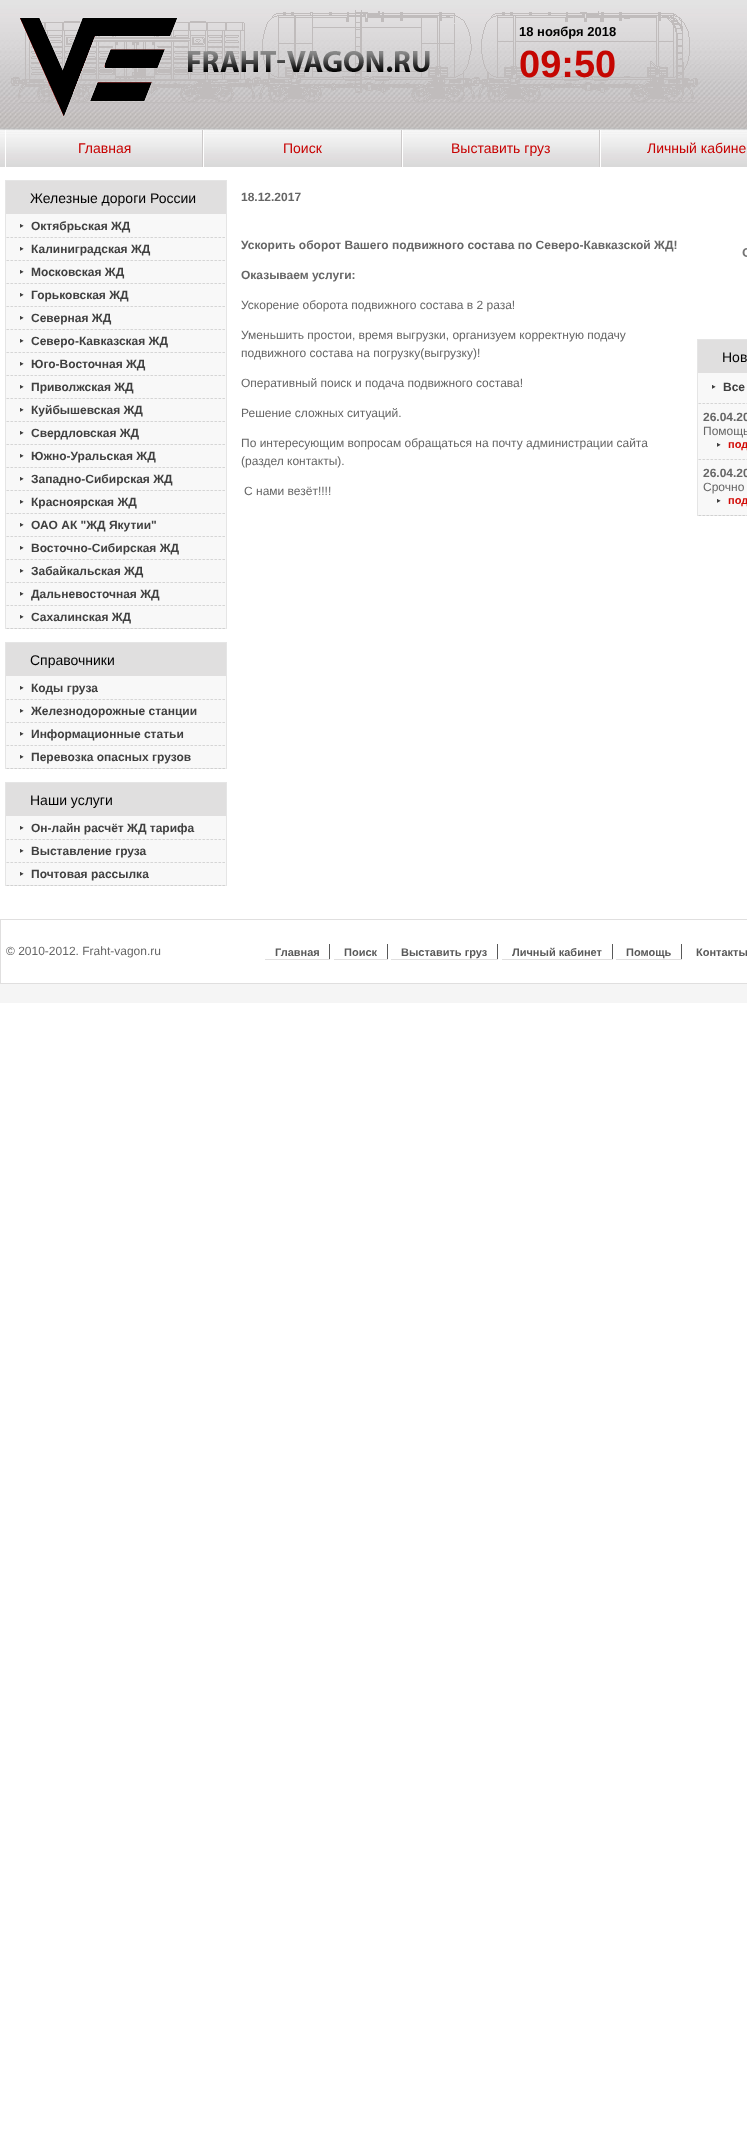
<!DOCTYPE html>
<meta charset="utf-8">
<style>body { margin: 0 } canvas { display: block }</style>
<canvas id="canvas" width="747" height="2131"></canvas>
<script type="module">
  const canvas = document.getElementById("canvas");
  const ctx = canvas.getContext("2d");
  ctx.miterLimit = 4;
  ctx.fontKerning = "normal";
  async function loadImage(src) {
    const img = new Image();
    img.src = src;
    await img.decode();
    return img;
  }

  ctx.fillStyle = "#ffffff";
  ctx.fillRect(0, 0, 747, 2131);
  ctx.drawImage(await loadImage("img1.png"), 0, 0, 747, 167);
  ctx.drawImage(await loadImage("img2.png"), 11, 10, 687, 93);
  ctx.drawImage(await loadImage("img3.png"), 20, 17, 158, 99);
  ctx.drawImage(await loadImage("img4.png"), 188, 51, 242, 21);
  ctx.font = "bold 13px Liberation Sans";
  ctx.fillStyle = "#000000";
  ctx.fillText("18 ноября 2018", 519, 36);
  ctx.font = "bold 38px Liberation Sans";
  ctx.fillStyle = "#c50601";
  ctx.fillText("09:50", 519, 77);
  ctx.fillStyle = "#ccc9c9";
  ctx.fillRect(202, 130, 1, 37);
  ctx.fillStyle = "#ffffff";
  ctx.fillRect(5, 130, 1, 37);
  ctx.font = "14px Liberation Sans";
  ctx.fillStyle = "#c70000";
  ctx.fillText("Главная", 78, 153);
  ctx.fillStyle = "#ccc9c9";
  ctx.fillRect(401, 130, 1, 37);
  ctx.fillStyle = "#ffffff";
  ctx.fillRect(203, 130, 1, 37);
  ctx.fillStyle = "#c70000";
  ctx.fillText("Поиск", 283, 153);
  ctx.fillStyle = "#ccc9c9";
  ctx.fillRect(599, 130, 1, 37);
  ctx.fillStyle = "#ffffff";
  ctx.fillRect(402, 130, 1, 37);
  ctx.fillStyle = "#c70000";
  ctx.fillText("Выставить груз", 451, 153);
  ctx.fillStyle = "#ffffff";
  ctx.fillRect(600, 130, 1, 37);
  ctx.fillStyle = "#c70000";
  ctx.fillText("Личный кабине", 647, 153);
  ctx.fillStyle = "#f8f8f8";
  ctx.fillRect(6, 214, 220, 414);
  ctx.strokeStyle = "#e5e5e5";
  ctx.strokeRect(5.5, 180.5, 221, 448);
  ctx.fillStyle = "#e0dfdf";
  ctx.fillRect(6, 181, 220, 33);
  ctx.fillStyle = "#000000";
  ctx.fillText("Железные дороги России", 30, 203);
  ctx.drawImage(await loadImage("img5.png"), 6, 237, 219, 1);
  ctx.drawImage(await loadImage("img6.png"), 20, 224, 4, 4);
  ctx.font = "bold 12px Liberation Sans";
  ctx.fillStyle = "#404040";
  ctx.fillText("Октябрьская ЖД", 31, 230);
  ctx.drawImage(await loadImage("img5.png"), 6, 260, 219, 1);
  ctx.drawImage(await loadImage("img6.png"), 20, 247, 4, 4);
  ctx.fillText("Калиниградская ЖД", 31, 253);
  ctx.drawImage(await loadImage("img5.png"), 6, 283, 219, 1);
  ctx.drawImage(await loadImage("img6.png"), 20, 270, 4, 4);
  ctx.fillText("Московская ЖД", 31, 276);
  ctx.drawImage(await loadImage("img5.png"), 6, 306, 219, 1);
  ctx.drawImage(await loadImage("img6.png"), 20, 293, 4, 4);
  ctx.fillText("Горьковская ЖД", 31, 299);
  ctx.drawImage(await loadImage("img5.png"), 6, 329, 219, 1);
  ctx.drawImage(await loadImage("img6.png"), 20, 316, 4, 4);
  ctx.fillText("Северная ЖД", 31, 322);
  ctx.drawImage(await loadImage("img5.png"), 6, 352, 219, 1);
  ctx.drawImage(await loadImage("img6.png"), 20, 339, 4, 4);
  ctx.fillText("Северо-Кавказская ЖД", 31, 345);
  ctx.drawImage(await loadImage("img5.png"), 6, 375, 219, 1);
  ctx.drawImage(await loadImage("img6.png"), 20, 362, 4, 4);
  ctx.fillText("Юго-Восточная ЖД", 31, 368);
  ctx.drawImage(await loadImage("img5.png"), 6, 398, 219, 1);
  ctx.drawImage(await loadImage("img6.png"), 20, 385, 4, 4);
  ctx.fillText("Приволжская ЖД", 31, 391);
  ctx.drawImage(await loadImage("img5.png"), 6, 421, 219, 1);
  ctx.drawImage(await loadImage("img6.png"), 20, 408, 4, 4);
  ctx.fillText("Куйбышевская ЖД", 31, 414);
  ctx.drawImage(await loadImage("img5.png"), 6, 444, 219, 1);
  ctx.drawImage(await loadImage("img6.png"), 20, 431, 4, 4);
  ctx.fillText("Свердловская ЖД", 31, 437);
  ctx.drawImage(await loadImage("img5.png"), 6, 467, 219, 1);
  ctx.drawImage(await loadImage("img6.png"), 20, 454, 4, 4);
  ctx.fillText("Южно-Уральская ЖД", 31, 460);
  ctx.drawImage(await loadImage("img5.png"), 6, 490, 219, 1);
  ctx.drawImage(await loadImage("img6.png"), 20, 477, 4, 4);
  ctx.fillText("Западно-Сибирская ЖД", 31, 483);
  ctx.drawImage(await loadImage("img5.png"), 6, 513, 219, 1);
  ctx.drawImage(await loadImage("img6.png"), 20, 500, 4, 4);
  ctx.fillText("Красноярская ЖД", 31, 506);
  ctx.drawImage(await loadImage("img5.png"), 6, 536, 219, 1);
  ctx.drawImage(await loadImage("img6.png"), 20, 523, 4, 4);
  ctx.fillText("ОАО АК \"ЖД Якутии\"", 31, 529);
  ctx.drawImage(await loadImage("img5.png"), 6, 559, 219, 1);
  ctx.drawImage(await loadImage("img6.png"), 20, 546, 4, 4);
  ctx.fillText("Восточно-Сибирская ЖД", 31, 552);
  ctx.drawImage(await loadImage("img5.png"), 6, 582, 219, 1);
  ctx.drawImage(await loadImage("img6.png"), 20, 569, 4, 4);
  ctx.fillText("Забайкальская ЖД", 31, 575);
  ctx.drawImage(await loadImage("img5.png"), 6, 605, 219, 1);
  ctx.drawImage(await loadImage("img6.png"), 20, 592, 4, 4);
  ctx.fillText("Дальневосточная ЖД", 31, 598);
  ctx.drawImage(await loadImage("img7.png"), 6, 628, 220, 1);
  ctx.drawImage(await loadImage("img6.png"), 20, 615, 4, 4);
  ctx.fillText("Сахалинская ЖД", 31, 621);
  ctx.fillStyle = "#f8f8f8";
  ctx.fillRect(6, 676, 220, 92);
  ctx.strokeRect(5.5, 642.5, 221, 126);
  ctx.fillStyle = "#e0dfdf";
  ctx.fillRect(6, 643, 220, 33);
  ctx.font = "14px Liberation Sans";
  ctx.fillStyle = "#000000";
  ctx.fillText("Справочники", 30, 665);
  ctx.drawImage(await loadImage("img5.png"), 6, 699, 219, 1);
  ctx.drawImage(await loadImage("img6.png"), 20, 686, 4, 4);
  ctx.font = "bold 12px Liberation Sans";
  ctx.fillStyle = "#404040";
  ctx.fillText("Коды груза", 31, 692);
  ctx.drawImage(await loadImage("img5.png"), 6, 722, 219, 1);
  ctx.drawImage(await loadImage("img6.png"), 20, 709, 4, 4);
  ctx.fillText("Железнодорожные станции", 31, 715);
  ctx.drawImage(await loadImage("img5.png"), 6, 745, 219, 1);
  ctx.drawImage(await loadImage("img6.png"), 20, 732, 4, 4);
  ctx.fillText("Информационные статьи", 31, 738);
  ctx.drawImage(await loadImage("img7.png"), 6, 768, 220, 1);
  ctx.drawImage(await loadImage("img6.png"), 20, 755, 4, 4);
  ctx.fillText("Перевозка опасных грузов", 31, 761);
  ctx.fillStyle = "#f8f8f8";
  ctx.fillRect(6, 816, 220, 69);
  ctx.strokeRect(5.5, 782.5, 221, 103);
  ctx.fillStyle = "#e0dfdf";
  ctx.fillRect(6, 783, 220, 33);
  ctx.font = "14px Liberation Sans";
  ctx.fillStyle = "#000000";
  ctx.fillText("Наши услуги", 30, 805);
  ctx.drawImage(await loadImage("img5.png"), 6, 839, 219, 1);
  ctx.drawImage(await loadImage("img6.png"), 20, 826, 4, 4);
  ctx.font = "bold 12px Liberation Sans";
  ctx.fillStyle = "#404040";
  ctx.fillText("Он-лайн расчёт ЖД тарифа", 31, 832);
  ctx.drawImage(await loadImage("img5.png"), 6, 862, 219, 1);
  ctx.drawImage(await loadImage("img6.png"), 20, 849, 4, 4);
  ctx.fillText("Выставление груза", 31, 855);
  ctx.drawImage(await loadImage("img7.png"), 6, 885, 220, 1);
  ctx.drawImage(await loadImage("img6.png"), 20, 872, 4, 4);
  ctx.fillText("Почтовая рассылка", 31, 878);
  ctx.fillStyle = "#666666";
  ctx.fillText("18.12.2017", 241, 201);
  ctx.fillText("Ускорить оборот Вашего подвижного состава по Северо-Кавказской ЖД!", 241, 249);
  ctx.fillText("Оказываем услуги:", 241, 279);
  ctx.font = "12px Liberation Sans";
  ctx.fillText("Ускорение оборота подвижного состава в 2 раза!", 241, 309);
  ctx.fillText("Уменьшить простои, время выгрузки, организуем корректную подачу", 241, 339);
  ctx.fillText("подвижного состава на погрузку(выгрузку)!", 241, 357);
  ctx.fillText("Оперативный поиск и подача подвижного состава!", 241, 387);
  ctx.fillText("Решение сложных ситуаций.", 241, 417);
  ctx.fillText("По интересующим вопросам обращаться на почту администрации сайта", 241, 447);
  ctx.fillText("(раздел контакты).", 241, 465);
  ctx.fillText("С нами везёт!!!!", 244, 495);
  ctx.drawImage(await loadImage("img8.png"), 742, 248, 5, 9);
  ctx.fillStyle = "#f8f8f8";
  ctx.fillRect(698, 373, 49, 142);
  ctx.strokeRect(697.5, 339.5, 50, 176);
  ctx.fillStyle = "#e0dfdf";
  ctx.fillRect(698, 340, 49, 33);
  ctx.font = "14px Liberation Sans";
  ctx.fillStyle = "#000000";
  ctx.fillText("Нов", 722, 362);
  ctx.drawImage(await loadImage("img9.png"), 698, 403, 49, 1);
  ctx.drawImage(await loadImage("img6.png"), 712, 385, 4, 4);
  ctx.font = "bold 12px Liberation Sans";
  ctx.fillStyle = "#404040";
  ctx.fillText("Все", 723, 391);
  ctx.drawImage(await loadImage("img9.png"), 698, 459, 49, 1);
  ctx.fillStyle = "#666666";
  ctx.fillText("26.04.20", 703, 421);
  ctx.font = "12px Liberation Sans";
  ctx.fillText("Помощь", 703, 435);
  ctx.drawImage(await loadImage("img6.png"), 717, 443, 4, 4);
  ctx.font = "bold 11px Liberation Sans";
  ctx.fillStyle = "#d20a05";
  ctx.fillText("под", 728, 448);
  ctx.drawImage(await loadImage("img10.png"), 698, 515, 49, 1);
  ctx.font = "bold 12px Liberation Sans";
  ctx.fillStyle = "#666666";
  ctx.fillText("26.04.20", 703, 477);
  ctx.font = "12px Liberation Sans";
  ctx.fillText("Срочно", 703, 491);
  ctx.drawImage(await loadImage("img6.png"), 717, 499, 4, 4);
  ctx.font = "bold 11px Liberation Sans";
  ctx.fillStyle = "#d20a05";
  ctx.fillText("под", 728, 504);
  ctx.fillStyle = "#f5f5f5";
  ctx.fillRect(0, 984, 747, 19);
  ctx.strokeStyle = "#e0dfdf";
  ctx.strokeRect(0.5, 919.5, 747, 64);
  ctx.font = "12px Liberation Sans";
  ctx.fillStyle = "#666666";
  ctx.fillText("© 2010-2012. Fraht-vagon.ru", 6, 955);
  ctx.font = "bold 11px Liberation Sans";
  ctx.fillStyle = "#595959";
  ctx.fillText("Главная", 275, 956);
  ctx.fillRect(329, 944, 1, 16);
  ctx.fillStyle = "#e0dfdf";
  ctx.fillRect(265, 959, 65, 1);
  ctx.fillStyle = "#595959";
  ctx.fillText("Поиск", 344, 956);
  ctx.fillRect(387, 944, 1, 16);
  ctx.fillStyle = "#e0dfdf";
  ctx.fillRect(334, 959, 54, 1);
  ctx.fillStyle = "#595959";
  ctx.fillText("Выставить груз", 401, 956);
  ctx.fillRect(497, 944, 1, 16);
  ctx.fillStyle = "#e0dfdf";
  ctx.fillRect(391, 959, 107, 1);
  ctx.fillStyle = "#595959";
  ctx.fillText("Личный кабинет", 512, 956);
  ctx.fillRect(612, 944, 1, 16);
  ctx.fillStyle = "#e0dfdf";
  ctx.fillRect(502, 959, 111, 1);
  ctx.fillStyle = "#595959";
  ctx.fillText("Помощь", 626, 956);
  ctx.fillRect(681, 944, 1, 16);
  ctx.fillStyle = "#e0dfdf";
  ctx.fillRect(616, 959, 66, 1);
  ctx.fillStyle = "#595959";
  ctx.fillText("Контакты", 696, 956);
</script>
